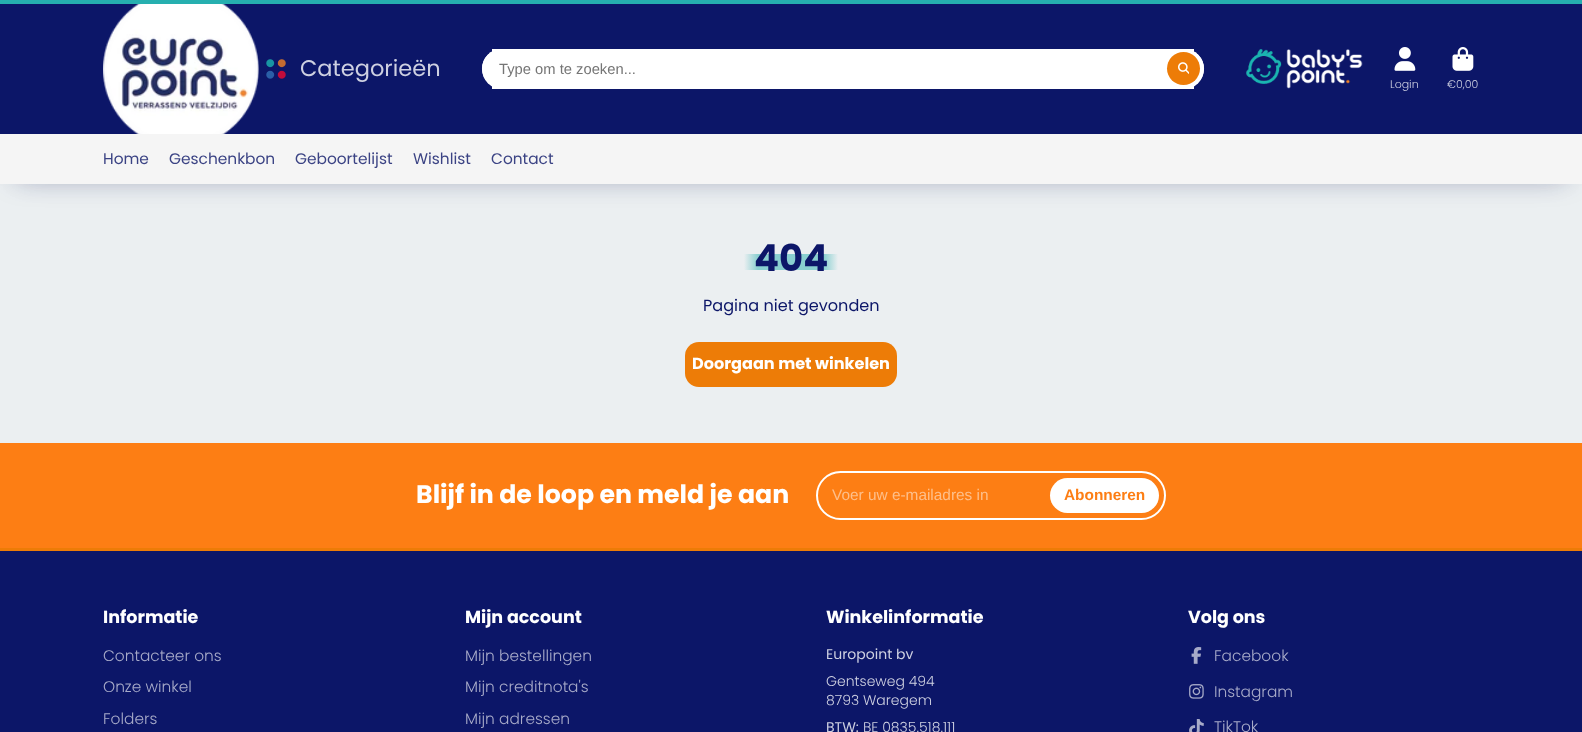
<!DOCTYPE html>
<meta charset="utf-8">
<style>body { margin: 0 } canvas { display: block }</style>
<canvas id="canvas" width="1582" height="732"></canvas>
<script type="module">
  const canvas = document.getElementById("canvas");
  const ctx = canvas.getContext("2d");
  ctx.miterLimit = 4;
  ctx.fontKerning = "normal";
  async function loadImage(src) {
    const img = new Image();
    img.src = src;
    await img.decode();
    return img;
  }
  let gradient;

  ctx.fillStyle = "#ebeff1";
  ctx.fillRect(0, 0, 1582, 732);
  ctx.fillStyle = "rgba(9, 17, 81, 0.3)";
  ctx.filter = "blur(14px)";
  ctx.beginPath();
  ctx.rect(14, 25, 1554, 152);
  ctx.fill();
  ctx.filter = "none";
  ctx.fillStyle = "rgba(9, 17, 81, 0.1)";
  ctx.filter = "blur(14px)";
  ctx.beginPath();
  ctx.rect(21, 39, 1540, 138);
  ctx.fill();
  ctx.filter = "none";
  ctx.fillStyle = "#26afaf";
  ctx.fillRect(0, 0, 1582, 4);
  ctx.fillStyle = "#0c1668";
  ctx.fillRect(0, 4, 1582, 130);
  ctx.drawImage(await loadImage("img1.png"), 103, 4, 156, 130);
  ctx.drawImage(await loadImage("img2.png"), 266, 59, 20, 20);
  ctx.font = "22.5px Poppins";
  ctx.fillStyle = "#ced0e1";
  ctx.fillText("Categorieën", 300, 76);
  ctx.fillStyle = "#ffffff";
  ctx.beginPath();
  ctx.roundRect(482, 49, 722, 40, 20);
  ctx.fill();
  ctx.fillRect(492, 49, 702, 40);
  ctx.beginPath();
  ctx.roundRect(482, 49, 722, 39, 19.5);
  ctx.fill();
  ctx.font = "14.75px Liberation Sans";
  ctx.fillStyle = "#757575";
  ctx.fillText("Type om te zoeken...", 499, 74);
  ctx.fillStyle = "#ed7c07";
  ctx.beginPath();
  ctx.arc(1183.5, 68.5, 16.5, 0, Math.PI * 2);
  ctx.fill();
  ctx.drawImage(await loadImage("img3.png"), 1178, 62, 11, 12);
  ctx.drawImage(await loadImage("img4.png"), 1246, 49, 117, 40);
  ctx.drawImage(await loadImage("img5.png"), 1394, 47, 22, 24);
  ctx.font = "300 11px Poppins";
  ctx.fillStyle = "#ced0e1";
  ctx.fillText("Login", 1390, 88);
  ctx.drawImage(await loadImage("img6.png"), 1452, 47, 22, 24);
  ctx.fillText("€0,00", 1447, 88);
  ctx.fillStyle = "#f5f5f5";
  ctx.fillRect(0, 134, 1582, 50);
  ctx.font = "15.4px Poppins";
  ctx.fillStyle = "#3b4384";
  ctx.fillText("Home", 103, 164);
  ctx.fillText("Geschenkbon", 169, 164);
  ctx.fillText("Geboortelijst", 295, 164);
  ctx.fillText("Wishlist", 413, 164);
  ctx.fillText("Contact", 491, 164);
  gradient = ctx.createLinearGradient(744, 262, 838, 262);
  gradient.addColorStop(0, "#ebeff1");
  gradient.addColorStop(0.15, "#89cfd0");
  gradient.addColorStop(0.85, "#89cfd0");
  gradient.addColorStop(1, "#ebeff1");
  ctx.fillStyle = gradient;
  ctx.fillRect(744, 254, 94, 16);
  ctx.font = "bold 37px Poppins";
  ctx.fillStyle = "#0c1668";
  ctx.fillText("404", 754, 271);
  ctx.font = "16.1px Poppins";
  ctx.fillText("Pagina niet gevonden", 703, 311);
  ctx.fillStyle = "#ed7c07";
  ctx.beginPath();
  ctx.roundRect(685, 342, 212, 45, 14);
  ctx.fill();
  ctx.font = "bold 16.1px Poppins";
  ctx.fillStyle = "#ffffff";
  ctx.fillText("Doorgaan met winkelen", 692, 369);
  ctx.fillStyle = "#fd7e14";
  ctx.fillRect(0, 443, 1582, 105);
  ctx.font = "bold 25.25px Poppins";
  ctx.fillStyle = "#ffffff";
  ctx.fillText("Blijf in de loop en meld je aan", 416, 503);
  ctx.beginPath();
  ctx.roundRect(817, 472, 348, 47, 23.5);
  ctx.strokeStyle = "#ffffff";
  ctx.lineWidth = 2;
  ctx.stroke();
  ctx.font = "15.4px Liberation Sans";
  ctx.fillStyle = "#febf8a";
  ctx.fillText("Voer uw e-mailadres in", 832, 500);
  ctx.fillStyle = "#ffffff";
  ctx.beginPath();
  ctx.roundRect(1050, 478, 109, 35, 17.5);
  ctx.fill();
  ctx.font = "bold 15.4px Liberation Sans";
  ctx.fillStyle = "#fd7e14";
  ctx.fillText("Abonneren", 1064, 500);
  ctx.fillStyle = "#0c1668";
  ctx.fillRect(0, 551, 1582, 181);
  ctx.fillStyle = "#ed7c07";
  ctx.fillRect(0, 548, 1582, 3);
  ctx.font = "bold 17.5px Poppins";
  ctx.fillStyle = "#ffffff";
  ctx.fillText("Informatie", 103, 623);
  ctx.font = "300 15.4px Poppins";
  ctx.fillStyle = "#a8abc9";
  ctx.fillText("Contacteer ons", 103, 661);
  ctx.fillText("Onze winkel", 103, 692);
  ctx.fillText("Folders", 103, 724);
  ctx.font = "bold 17.5px Poppins";
  ctx.fillStyle = "#ffffff";
  ctx.fillText("Mijn account", 465, 623);
  ctx.font = "300 15.4px Poppins";
  ctx.fillStyle = "#a8abc9";
  ctx.fillText("Mijn bestellingen", 465, 661);
  ctx.fillText("Mijn creditnota's", 465, 692);
  ctx.fillText("Mijn adressen", 465, 724);
  ctx.font = "bold 17.5px Poppins";
  ctx.fillStyle = "#ffffff";
  ctx.fillText("Winkelinformatie", 826, 623);
  ctx.font = "14px Poppins";
  ctx.fillStyle = "#ced0e1";
  ctx.fillText("Europoint bv", 826, 659);
  ctx.font = "300 14px Poppins";
  ctx.fillText("Gentseweg 494", 826, 686);
  ctx.fillText("8793 Waregem", 826, 705);
  ctx.font = "14px Poppins";
  ctx.fillText("BTW:", 826, 732);
  ctx.font = "300 14px Poppins";
  ctx.fillText("BE 0835.518.111", 863, 732);
  ctx.font = "bold 17.5px Poppins";
  ctx.fillStyle = "#ffffff";
  ctx.fillText("Volg ons", 1188, 623);
  ctx.drawImage(await loadImage("img7.png"), 1191, 647, 11, 17);
  ctx.font = "300 15.4px Poppins";
  ctx.fillStyle = "#a8abc9";
  ctx.fillText("Facebook", 1214, 661);
  ctx.drawImage(await loadImage("img8.png"), 1189, 684, 15, 15);
  ctx.fillText("Instagram", 1214, 697);
  ctx.drawImage(await loadImage("img9.png"), 1189, 719, 15, 13);
  ctx.fillText("TikTok", 1214, 732);
</script>
